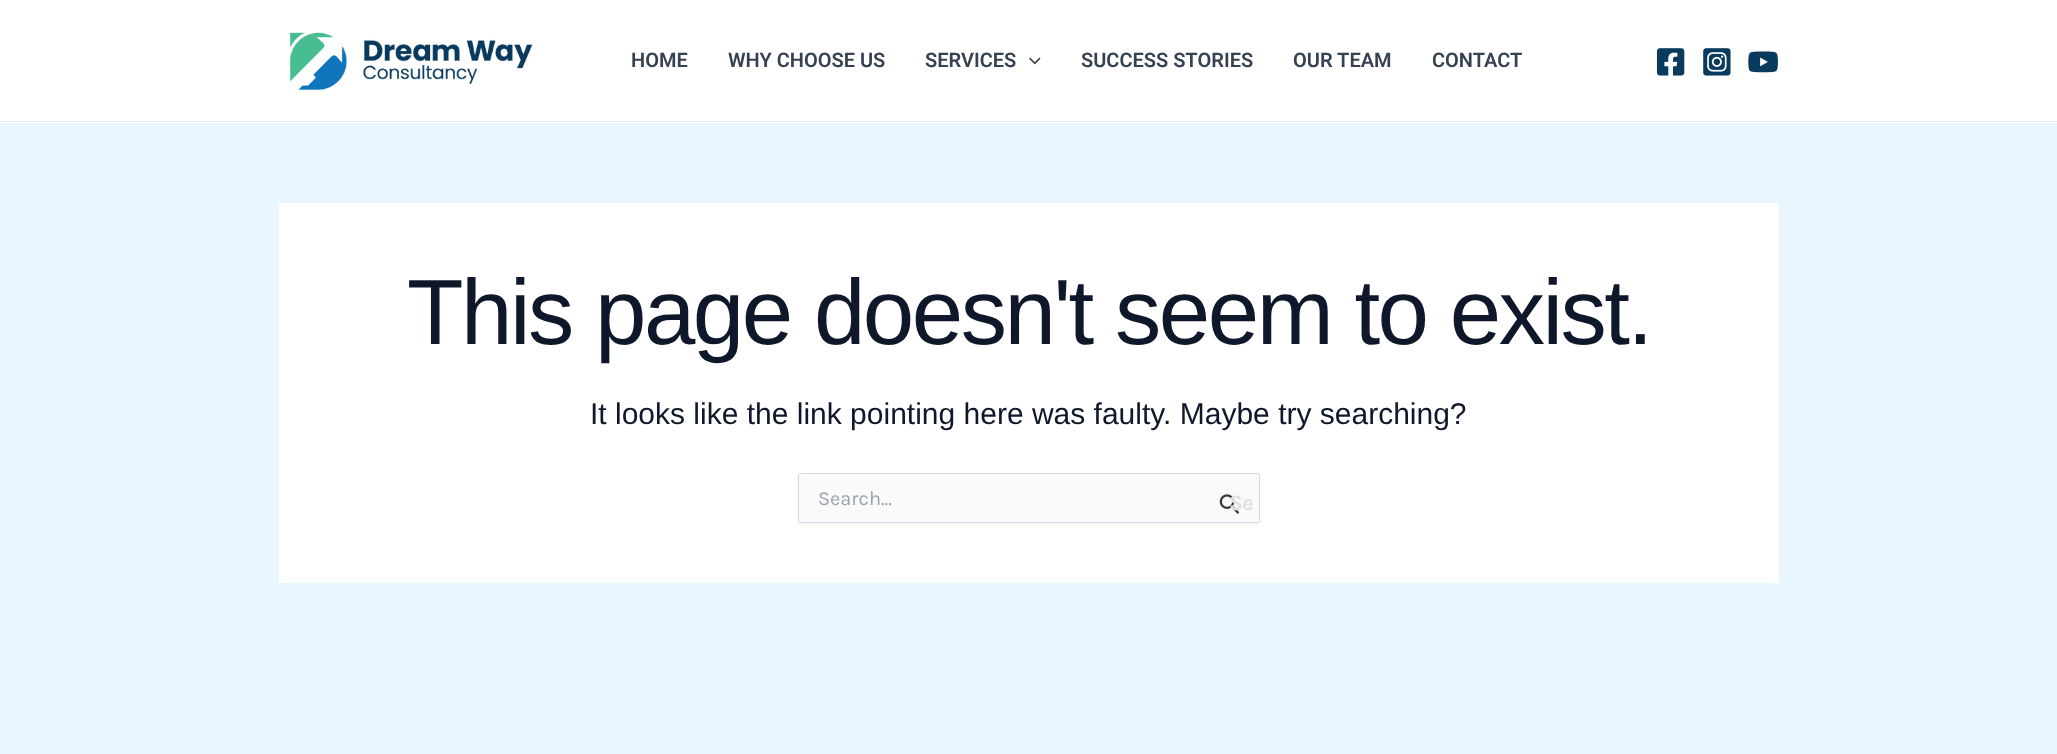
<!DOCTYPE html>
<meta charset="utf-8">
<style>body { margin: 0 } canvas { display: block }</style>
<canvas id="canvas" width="2057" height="754"></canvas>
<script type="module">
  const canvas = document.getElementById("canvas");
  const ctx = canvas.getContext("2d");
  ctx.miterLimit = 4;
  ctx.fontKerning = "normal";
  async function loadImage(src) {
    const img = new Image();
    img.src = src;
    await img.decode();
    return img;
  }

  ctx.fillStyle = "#e7f6ff";
  ctx.fillRect(0, 0, 2057, 754);
  ctx.fillStyle = "#ffffff";
  ctx.fillRect(0, 0, 2057, 123);
  ctx.fillStyle = "#eaeaea";
  ctx.fillRect(0, 121, 2057, 1);
  ctx.drawImage(await loadImage("img1.png"), 289, 32, 244, 59);
  ctx.font = "600 20px Roboto";
  ctx.fillStyle = "#364151";
  ctx.fillText("HOME", 631, 67);
  ctx.fillText("WHY CHOOSE US", 728, 67);
  ctx.fillText("SERVICES", 925, 67);
  ctx.drawImage(await loadImage("img2.png"), 1029, 57, 12, 8);
  ctx.fillText("SUCCESS STORIES", 1081, 67);
  ctx.fillText("OUR TEAM", 1293, 67);
  ctx.fillText("CONTACT", 1432, 67);
  ctx.drawImage(await loadImage("img3.png"), 1656, 48, 29, 28);
  ctx.drawImage(await loadImage("img4.png"), 1703, 48, 28, 28);
  ctx.drawImage(await loadImage("img5.png"), 1748, 51, 30, 22);
  ctx.fillStyle = "#ffffff";
  ctx.fillRect(279, 203, 1500, 380);
  ctx.letterSpacing = "-2.5px";
  ctx.font = "92.5px Liberation Sans";
  ctx.fillStyle = "#0f172a";
  ctx.fillText("This page doesn't seem to exist.", 407, 344);
  ctx.letterSpacing = "0px";
  ctx.font = "30px Liberation Sans";
  ctx.fillText("It looks like the link pointing here was faulty. Maybe try searching?", 590, 424);
  ctx.fillStyle = "rgba(0, 0, 0, 0.05)";
  ctx.filter = "blur(1px)";
  ctx.beginPath();
  ctx.roundRect(798, 474, 462, 50, 2.5);
  ctx.fill();
  ctx.filter = "none";
  ctx.fillStyle = "#fafafa";
  ctx.beginPath();
  ctx.roundRect(798.5, 473.5, 461, 49, 2);
  ctx.fill();
  ctx.strokeStyle = "#d1dae5";
  ctx.stroke();
  ctx.font = "20px Karla";
  ctx.fillStyle = "#9ca3af";
  ctx.fillText("Search...", 818, 505);
  ctx.drawImage(await loadImage("img6.png"), 1219, 494, 20, 20);
  ctx.letterSpacing = "-1px";
  ctx.font = "bold 22px Karla";
  ctx.fillStyle = "#e1e1e1";
  ctx.fillText("Se", 1229, 510);
</script>
